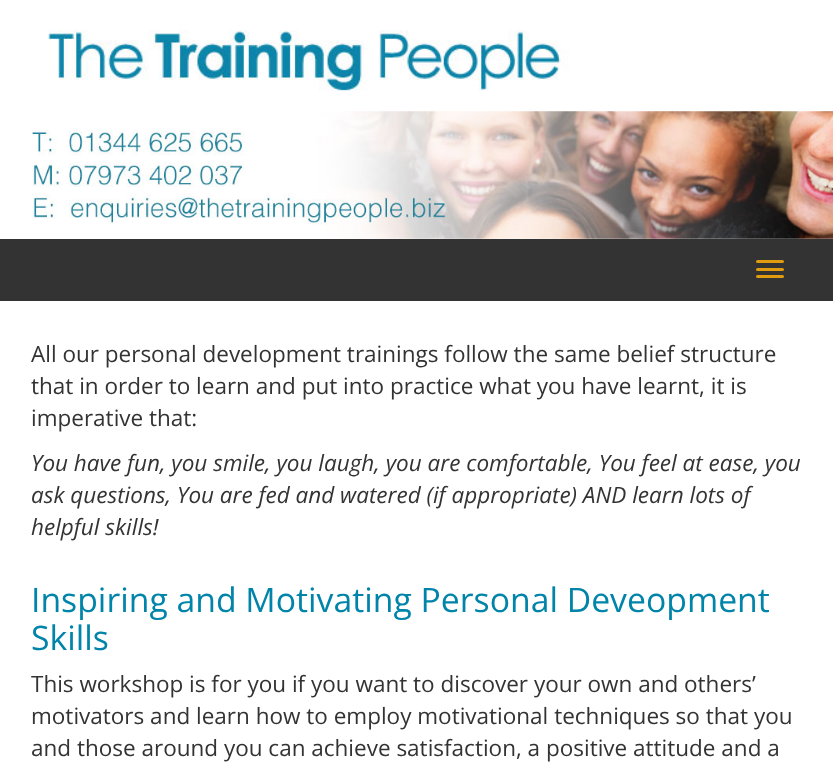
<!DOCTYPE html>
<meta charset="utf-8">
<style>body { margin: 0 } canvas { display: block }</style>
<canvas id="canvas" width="833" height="776"></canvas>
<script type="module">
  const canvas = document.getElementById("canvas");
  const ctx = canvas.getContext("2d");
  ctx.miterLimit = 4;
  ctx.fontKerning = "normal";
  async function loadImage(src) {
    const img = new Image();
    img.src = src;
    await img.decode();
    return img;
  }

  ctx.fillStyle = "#ffffff";
  ctx.fillRect(0, 0, 833, 776);
  ctx.drawImage(await loadImage("img1.png"), 48, 30, 521, 61);
  ctx.drawImage(await loadImage("img2.png"), 31, 111, 802, 128);
  ctx.fillStyle = "#333333";
  ctx.fillRect(0, 239, 833, 62);
  ctx.fillStyle = "#e09b0f";
  ctx.beginPath();
  ctx.roundRect(756, 260, 28, 3, 1.5);
  ctx.fill();
  ctx.beginPath();
  ctx.roundRect(756, 268, 28, 3, 1.5);
  ctx.fill();
  ctx.beginPath();
  ctx.roundRect(756, 275, 28, 3, 1.5);
  ctx.fill();
  ctx.font = "22.5px Open Sans";
  ctx.fillStyle = "#333333";
  ctx.fillText("All our personal development trainings follow the same belief structure", 31, 362);
  ctx.fillText("that in order to learn and put into practice what you have learnt, it is", 31, 394);
  ctx.fillText("imperative that:", 31, 426);
  ctx.font = "italic 22.5px Open Sans";
  ctx.fillText("You have fun, you smile, you laugh, you are comfortable, You feel at ease, you", 31, 471);
  ctx.fillText("ask questions, You are fed and watered (if appropriate) AND learn lots of", 31, 503);
  ctx.fillText("helpful skills!", 31, 535);
  ctx.font = "33.75px Open Sans";
  ctx.fillStyle = "#0084a9";
  ctx.fillText("Inspiring and Motivating Personal Deveopment", 31, 612);
  ctx.fillText("Skills", 31, 650);
  ctx.font = "22.5px Open Sans";
  ctx.fillStyle = "#333333";
  ctx.fillText("This workshop is for you if you want to discover your own and others’", 31, 692);
  ctx.fillText("motivators and learn how to employ motivational techniques so that you", 31, 724);
  ctx.fillText("and those around you can achieve satisfaction, a positive attitude and a", 31, 756);
</script>
